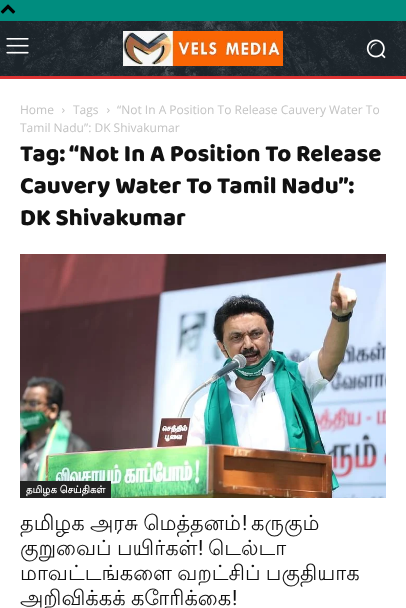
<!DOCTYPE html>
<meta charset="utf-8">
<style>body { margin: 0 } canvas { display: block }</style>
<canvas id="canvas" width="406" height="608"></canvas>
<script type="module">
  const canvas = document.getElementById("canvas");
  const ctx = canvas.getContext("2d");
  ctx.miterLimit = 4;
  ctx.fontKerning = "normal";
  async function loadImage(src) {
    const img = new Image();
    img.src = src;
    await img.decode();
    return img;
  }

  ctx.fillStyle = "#ffffff";
  ctx.fillRect(0, 0, 406, 608);
  ctx.fillStyle = "#008d7f";
  ctx.fillRect(0, 0, 406, 21);
  ctx.drawImage(await loadImage("img1.png"), 0, 4, 16, 10);
  ctx.fillStyle = "#232d35";
  ctx.fillRect(0, 21, 406, 55);
  ctx.drawImage(await loadImage("img2.png"), 0, 21, 406, 55);
  ctx.drawImage(await loadImage("img3.png"), 6, 38, 23, 16);
  ctx.drawImage(await loadImage("img4.png"), 123, 31, 160, 35);
  ctx.drawImage(await loadImage("img5.png"), 366, 39, 20, 20);
  ctx.fillStyle = "#dd3333";
  ctx.fillRect(0, 76, 406, 3);
  ctx.font = "12px Open Sans";
  ctx.fillStyle = "#c3c3c3";
  ctx.fillText("Home", 20, 114);
  ctx.drawImage(await loadImage("img6.png"), 62, 108, 3, 5);
  ctx.fillText("Tags", 73, 114);
  ctx.drawImage(await loadImage("img6.png"), 107, 108, 3, 5);
  ctx.fillText("“Not In A Position To Release Cauvery Water To", 117, 114);
  ctx.fillText("Tamil Nadu”: DK Shivakumar", 20, 132);
  ctx.font = "24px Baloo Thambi";
  ctx.fillStyle = "#111111";
  ctx.fillText("Tag: “Not In A Position To Release", 20, 161);
  ctx.fillText("Cauvery Water To Tamil Nadu”:", 20, 193);
  ctx.fillText("DK Shivakumar", 20, 225);
  ctx.drawImage(await loadImage("img7.png"), 20, 254, 366, 244);
  ctx.fillStyle = "#222222";
  ctx.fillRect(20, 481, 91, 17);
  ctx.font = "bold 10px Lohit Tamil";
  ctx.fillStyle = "#ffffff";
  ctx.fillText("தமிழக செய்திகள்", 26, 493);
  ctx.wordSpacing = "-1px";
  ctx.font = "21px Lohit Tamil";
  ctx.fillStyle = "#111111";
  ctx.fillText("தமிழக அரசு மெத்தனம்", 20, 530);
  ctx.wordSpacing = "0px";
  ctx.font = "21px Roboto";
  ctx.fillText("!", 242, 530);
  ctx.font = "21px Lohit Tamil";
  ctx.fillText("கருகும்", 251, 530);
  ctx.wordSpacing = "-1px";
  ctx.fillText("குறுவைப் பயிர்கள்", 20, 555);
  ctx.wordSpacing = "0px";
  ctx.font = "21px Roboto";
  ctx.fillText("!", 198, 555);
  ctx.font = "21px Lohit Tamil";
  ctx.fillText("டெல்டா", 208, 555);
  ctx.wordSpacing = "-1px";
  ctx.fillText("மாவட்டங்களை வறட்சிப் பகுதியாக", 20, 580);
  ctx.fillText("அறிவிக்கக் கோரிக்கை", 20, 605);
  ctx.wordSpacing = "0px";
  ctx.font = "21px Roboto";
  ctx.fillText("!", 232, 605);
</script>
